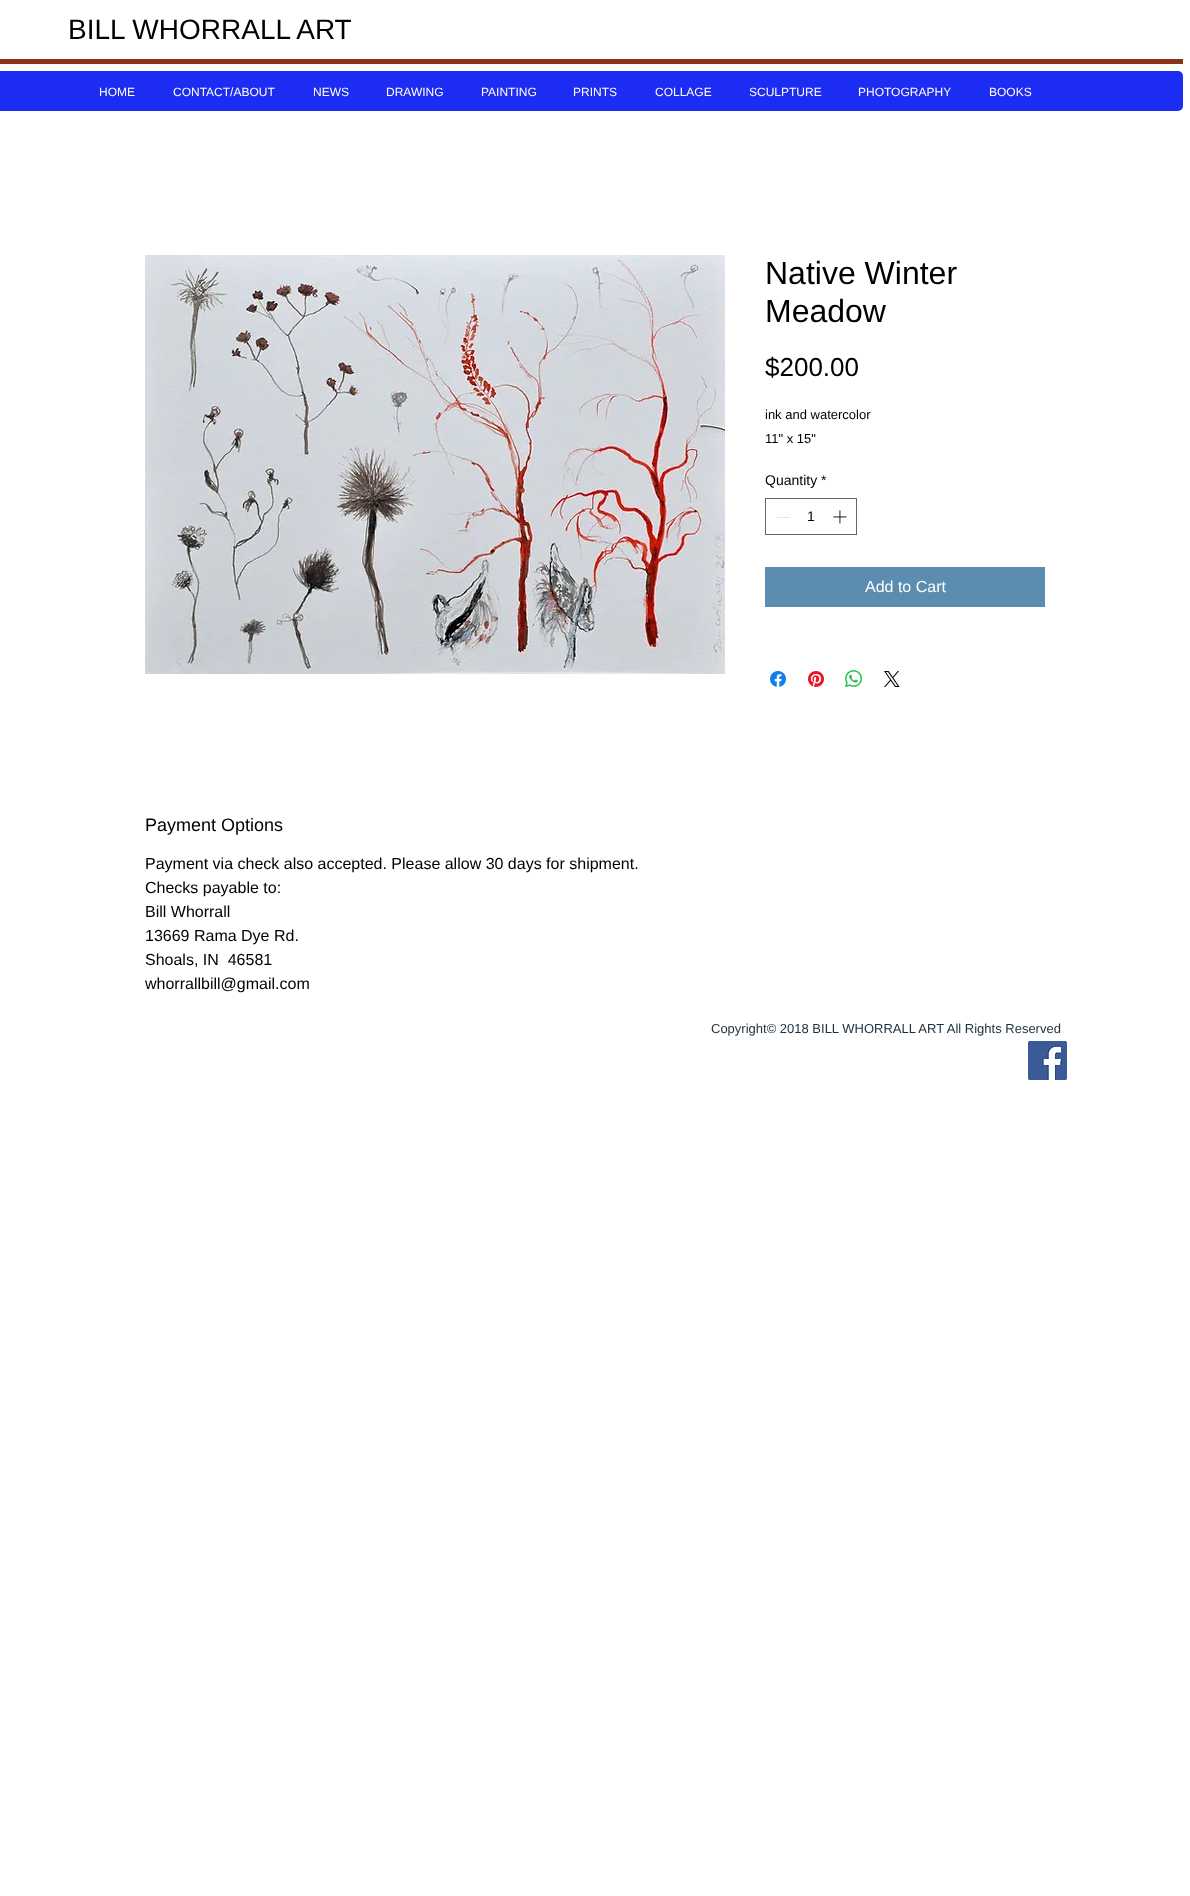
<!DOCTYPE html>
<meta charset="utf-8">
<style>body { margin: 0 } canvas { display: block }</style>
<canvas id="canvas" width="1190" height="1896"></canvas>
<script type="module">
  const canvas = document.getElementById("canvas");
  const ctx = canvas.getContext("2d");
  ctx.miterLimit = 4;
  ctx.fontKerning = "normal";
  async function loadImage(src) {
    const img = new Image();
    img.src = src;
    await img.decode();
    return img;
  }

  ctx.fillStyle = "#ffffff";
  ctx.fillRect(0, 0, 1190, 1896);
  ctx.font = "28px Liberation Sans";
  ctx.fillStyle = "#000000";
  ctx.fillText("BILL WHORRALL ART", 68, 39);
  ctx.fillStyle = "#8a3116";
  ctx.fillRect(0, 59, 1183, 5);
  ctx.fillStyle = "#1d2cf3";
  ctx.beginPath();
  ctx.roundRect(-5, 71, 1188, 40, 5);
  ctx.fill();
  ctx.font = "12px Liberation Sans";
  ctx.fillStyle = "#ffffff";
  ctx.fillText("HOME", 99, 96);
  ctx.fillText("CONTACT/ABOUT", 173, 96);
  ctx.fillText("NEWS", 313, 96);
  ctx.fillText("DRAWING", 386, 96);
  ctx.fillText("PAINTING", 481, 96);
  ctx.fillText("PRINTS", 573, 96);
  ctx.fillText("COLLAGE", 655, 96);
  ctx.fillText("SCULPTURE", 749, 96);
  ctx.fillText("PHOTOGRAPHY", 858, 96);
  ctx.fillText("BOOKS", 989, 96);
  ctx.drawImage(await loadImage("img1.png"), 145, 255, 580, 419);
  ctx.font = "32px Liberation Sans";
  ctx.fillStyle = "#000000";
  ctx.fillText("Native Winter", 765, 284);
  ctx.fillText("Meadow", 765, 322);
  ctx.font = "26px Liberation Sans";
  ctx.fillText("$200.00", 765, 376);
  ctx.font = "13px Liberation Sans";
  ctx.fillText("ink and watercolor", 765, 419);
  ctx.fillText("11\" x 15\"", 765, 443);
  ctx.font = "14px Liberation Sans";
  ctx.fillText("Quantity *", 765, 485);
  ctx.strokeStyle = "#666666";
  ctx.strokeRect(765.5, 498.5, 91, 36);
  ctx.fillStyle = "#e3e3e3";
  ctx.fillRect(777, 517, 13, 1);
  ctx.fillStyle = "#000000";
  ctx.fillText("1", 807, 521);
  ctx.drawImage(await loadImage("img2.png"), 833, 510, 14, 14);
  ctx.fillStyle = "#5b8db0";
  ctx.fillRect(765, 567, 280, 40);
  ctx.font = "16px Liberation Sans";
  ctx.fillStyle = "#ffffff";
  ctx.fillText("Add to Cart", 865, 592);
  ctx.drawImage(await loadImage("img3.png"), 770, 671, 16, 16);
  ctx.drawImage(await loadImage("img4.png"), 808, 671, 16, 16);
  ctx.drawImage(await loadImage("img5.png"), 845, 670, 17, 17);
  ctx.drawImage(await loadImage("img6.png"), 884, 671, 16, 16);
  ctx.font = "18px Liberation Sans";
  ctx.fillStyle = "#000000";
  ctx.fillText("Payment Options", 145, 831);
  ctx.font = "16px Liberation Sans";
  ctx.fillText("Payment via check also accepted. Please allow 30 days for shipment.", 145, 869);
  ctx.fillText("Checks payable to:", 145, 893);
  ctx.fillText("Bill Whorrall", 145, 917);
  ctx.fillText("13669 Rama Dye Rd.", 145, 941);
  ctx.fillText("Shoals, IN  46581", 145, 965);
  ctx.fillText("whorrallbill@gmail.com", 145, 989);
  ctx.font = "13px Liberation Sans";
  ctx.fillStyle = "#1e2f3b";
  ctx.fillText("Copyright© 2018 BILL WHORRALL ART All Rights Reserved", 711, 1033);
  ctx.drawImage(await loadImage("img7.png"), 1028, 1041, 39, 39);
</script>
